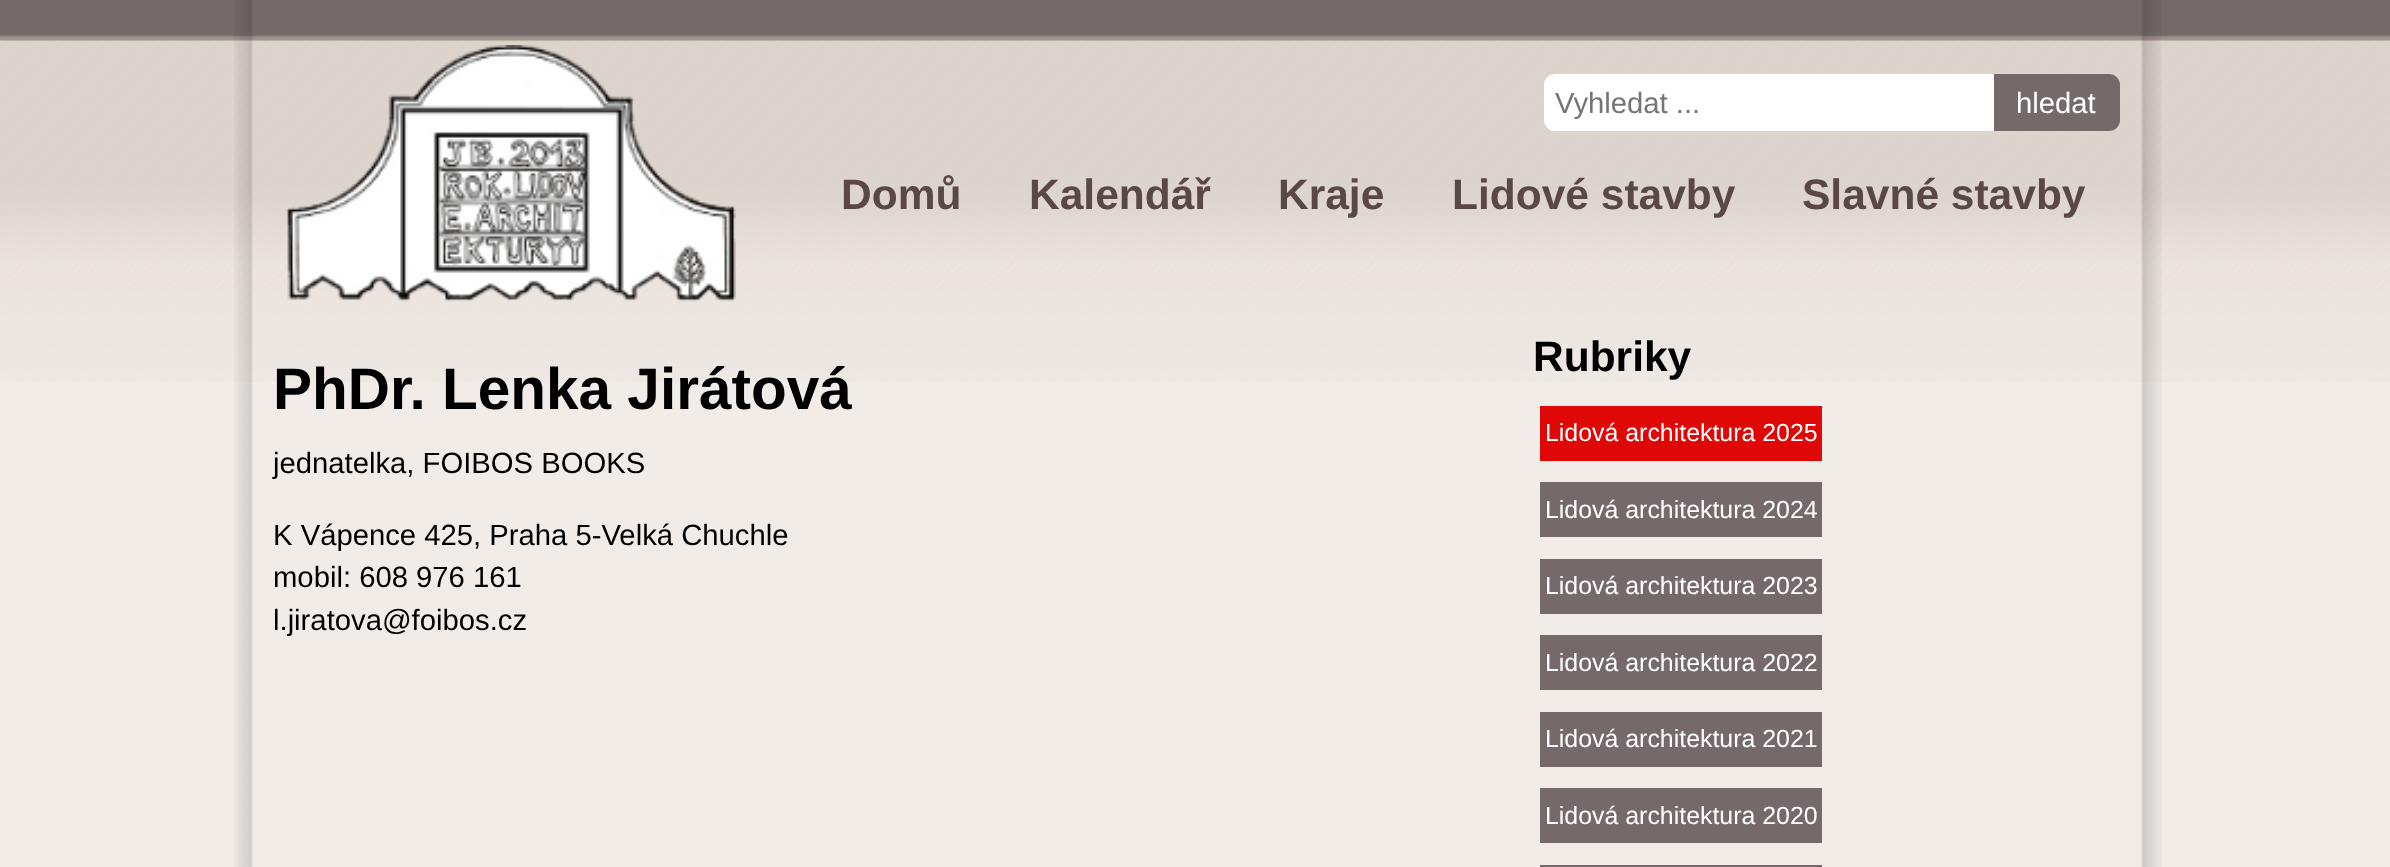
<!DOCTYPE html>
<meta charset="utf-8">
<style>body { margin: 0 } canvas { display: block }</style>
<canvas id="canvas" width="2390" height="867"></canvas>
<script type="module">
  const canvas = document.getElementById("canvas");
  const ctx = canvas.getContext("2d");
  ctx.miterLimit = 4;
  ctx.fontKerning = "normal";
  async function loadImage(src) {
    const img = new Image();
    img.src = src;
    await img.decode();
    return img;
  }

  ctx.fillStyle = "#f1ece8";
  ctx.fillRect(0, 0, 2390, 867);
  ctx.drawImage(await loadImage("img1.png"), 0, 0, 2390, 382);
  ctx.drawImage(await loadImage("img2.png"), 234, 0, 1928, 248);
  ctx.drawImage(await loadImage("img3.png"), 285, 45, 451, 257);
  ctx.fillStyle = "#ffffff";
  ctx.beginPath();
  ctx.roundRect(1544, 74, 450, 57, [11, 0, 0, 11]);
  ctx.fill();
  ctx.font = "29.25px Liberation Sans";
  ctx.fillStyle = "#757575";
  ctx.fillText("Vyhledat ...", 1555, 113);
  ctx.fillStyle = "#756a69";
  ctx.beginPath();
  ctx.roundRect(1994, 74, 126, 57, [0, 11, 11, 0]);
  ctx.fill();
  ctx.fillStyle = "#ffffff";
  ctx.fillText("hledat", 2016, 113);
  ctx.font = "bold 42.5px Liberation Sans";
  ctx.fillStyle = "#5b4846";
  ctx.fillText("Domů", 841, 209);
  ctx.fillText("Kalendář", 1029, 209);
  ctx.fillText("Kraje", 1278, 209);
  ctx.fillText("Lidové stavby", 1452, 209);
  ctx.fillText("Slavné stavby", 1802, 209);
  ctx.drawImage(await loadImage("img4.png"), 234, 247, 1928, 620);
  ctx.font = "bold 58.5px Liberation Sans";
  ctx.fillStyle = "#000000";
  ctx.fillText("PhDr. Lenka Jirátová", 273, 409);
  ctx.font = "29.25px Liberation Sans";
  ctx.fillText("jednatelka, FOIBOS BOOKS", 273, 473);
  ctx.fillText("K Vápence 425, Praha 5-Velká Chuchle", 273, 545);
  ctx.fillText("mobil: 608 976 161", 273, 587);
  ctx.fillText("l.jiratova@foibos.cz", 273, 630);
  ctx.font = "bold 42.5px Liberation Sans";
  ctx.fillText("Rubriky", 1533, 371);
  ctx.fillStyle = "#e00707";
  ctx.fillRect(1540, 406, 282, 55);
  ctx.font = "24.9px Liberation Sans";
  ctx.fillStyle = "#ffffff";
  ctx.fillText("Lidová architektura 2025", 1545, 441);
  ctx.fillStyle = "#756a69";
  ctx.fillRect(1540, 482, 282, 55);
  ctx.fillStyle = "#ffffff";
  ctx.fillText("Lidová architektura 2024", 1545, 518);
  ctx.fillStyle = "#756a69";
  ctx.fillRect(1540, 559, 282, 55);
  ctx.fillStyle = "#ffffff";
  ctx.fillText("Lidová architektura 2023", 1545, 594);
  ctx.fillStyle = "#756a69";
  ctx.fillRect(1540, 635, 282, 55);
  ctx.fillStyle = "#ffffff";
  ctx.fillText("Lidová architektura 2022", 1545, 671);
  ctx.fillStyle = "#756a69";
  ctx.fillRect(1540, 712, 282, 55);
  ctx.fillStyle = "#ffffff";
  ctx.fillText("Lidová architektura 2021", 1545, 747);
  ctx.fillStyle = "#756a69";
  ctx.fillRect(1540, 788, 282, 55);
  ctx.fillStyle = "#ffffff";
  ctx.fillText("Lidová architektura 2020", 1545, 824);
  ctx.fillStyle = "#756a69";
  ctx.beginPath();
  ctx.rect(1537.5, 862.5, 287, 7);
  ctx.fill();
  ctx.strokeStyle = "#f1ece8";
  ctx.lineWidth = 5;
  ctx.stroke();
</script>
